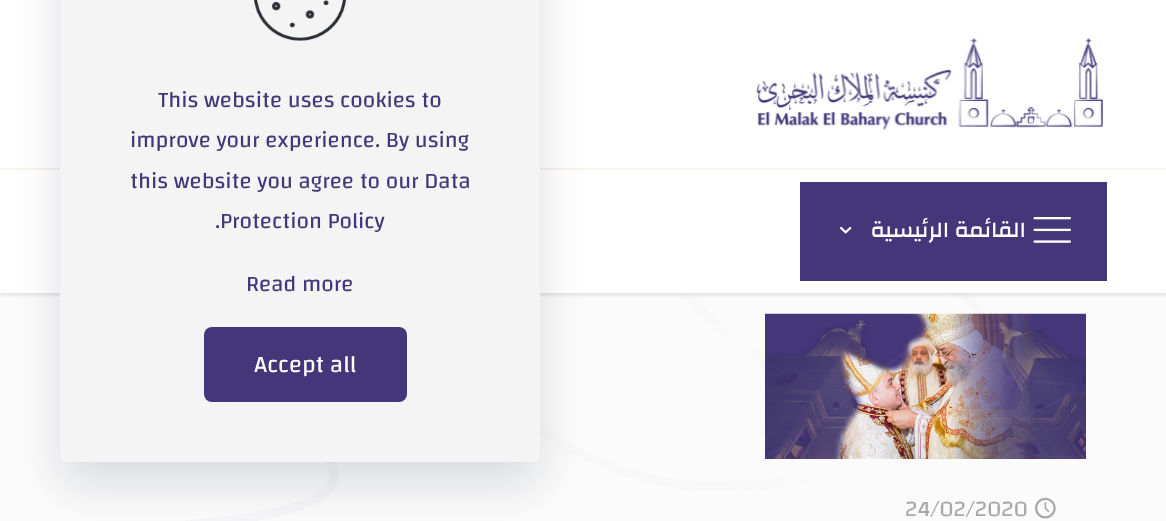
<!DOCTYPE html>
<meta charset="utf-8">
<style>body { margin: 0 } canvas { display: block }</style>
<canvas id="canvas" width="1166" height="521"></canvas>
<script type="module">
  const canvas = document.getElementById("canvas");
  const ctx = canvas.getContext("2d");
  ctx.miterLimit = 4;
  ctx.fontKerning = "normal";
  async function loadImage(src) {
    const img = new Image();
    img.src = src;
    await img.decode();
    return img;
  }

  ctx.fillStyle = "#fbfbfb";
  ctx.fillRect(0, 0, 1166, 521);
  ctx.fillStyle = "#ffffff";
  ctx.fillRect(0, 0, 1166, 168);
  ctx.fillStyle = "#f7f3ef";
  ctx.fillRect(0, 168, 1166, 2);
  ctx.drawImage(await loadImage("img5.png"), 185, 293, 797, 228);
  ctx.fillStyle = "rgba(0, 0, 0, 0.08)";
  ctx.filter = "blur(1.5px)";
  ctx.beginPath();
  ctx.rect(0, 173, 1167, 123);
  ctx.fill();
  ctx.filter = "none";
  ctx.fillStyle = "#ffffff";
  ctx.fillRect(0, 170, 1166, 123);
  ctx.fillStyle = "rgba(1, 7, 39, 0.13)";
  ctx.filter = "blur(22.5px)";
  ctx.beginPath();
  ctx.roundRect(60, -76, 480, 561, 8);
  ctx.fill();
  ctx.filter = "none";
  ctx.fillStyle = "#f4f4f4";
  ctx.beginPath();
  ctx.roundRect(60, -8, 480, 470, 8);
  ctx.fill();
  ctx.drawImage(await loadImage("img1.png"), 254, 0, 93, 41);
  ctx.font = "22.5px Changa";
  ctx.fillStyle = "#433779";
  ctx.fillText("This website uses cookies to", 158, 107);
  ctx.fillText("improve your experience. By using", 130, 147);
  ctx.fillText("this website you agree to our Data", 130, 188);
  ctx.fillText(".", 215, 228);
  ctx.fillText("Protection Policy", 220, 228);
  ctx.fillText("Read more", 246, 291);
  ctx.beginPath();
  ctx.roundRect(204, 327, 203, 75, 8);
  ctx.fill();
  ctx.font = "24px Changa";
  ctx.fillStyle = "#ffffff";
  ctx.fillText("Accept all", 254, 372);
  ctx.drawImage(await loadImage("img2.png"), 756, 38, 347, 92);
  ctx.fillStyle = "#433779";
  ctx.fillRect(800, 182, 307, 99);
  ctx.drawImage(await loadImage("img3.png"), 840, 226, 12, 8);
  ctx.direction = "rtl";
  ctx.font = "500 22.5px Changa";
  ctx.fillStyle = "#ffffff";
  ctx.fillText("القائمة الرئيسية", 1026, 237);
  ctx.drawImage(await loadImage("img4.png"), 1033, 217, 38, 26);
  ctx.drawImage(await loadImage("img6.png"), 765, 313, 321, 146);
  ctx.direction = "ltr";
  ctx.font = "22.5px Changa";
  ctx.fillStyle = "#a8a8a8";
  ctx.fillText("24/02/2020", 905, 516);
  ctx.drawImage(await loadImage("img7.png"), 1035, 497, 21, 22);
</script>
